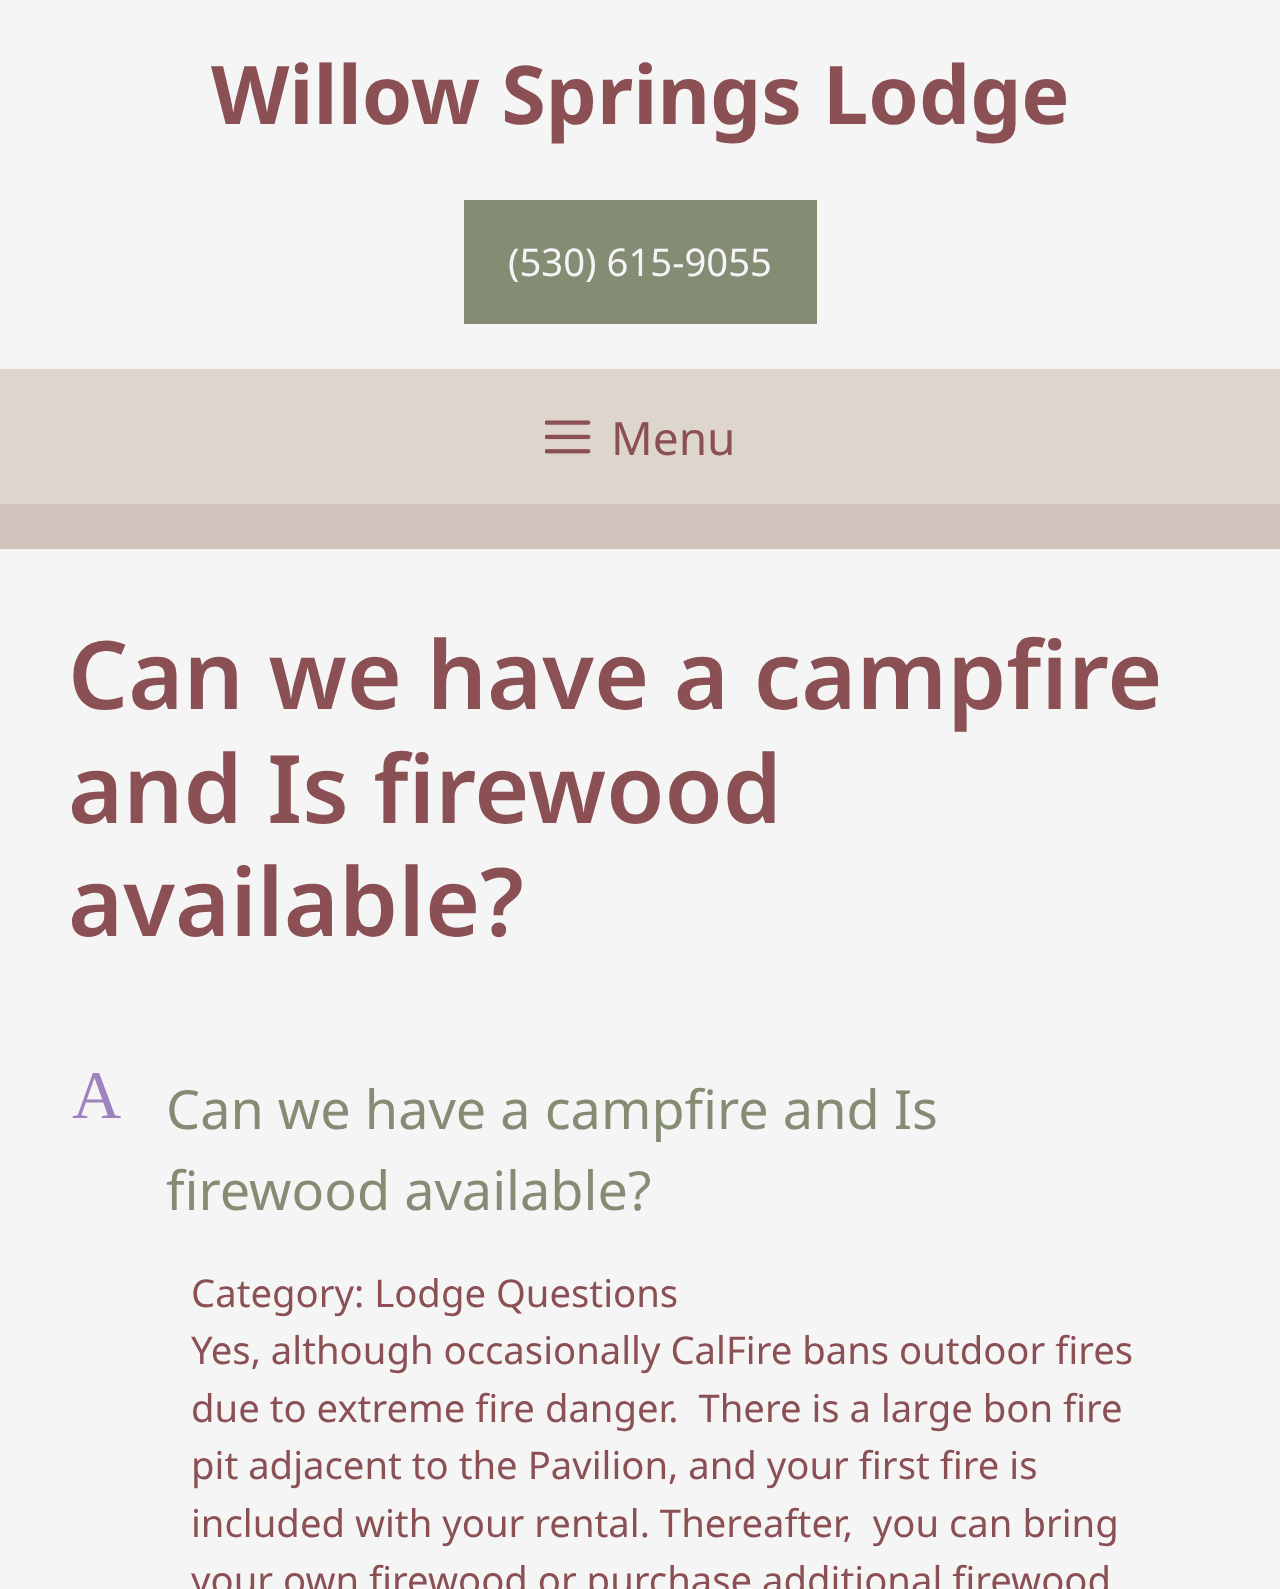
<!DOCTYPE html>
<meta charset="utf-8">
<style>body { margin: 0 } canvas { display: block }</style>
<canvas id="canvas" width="1280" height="1589"></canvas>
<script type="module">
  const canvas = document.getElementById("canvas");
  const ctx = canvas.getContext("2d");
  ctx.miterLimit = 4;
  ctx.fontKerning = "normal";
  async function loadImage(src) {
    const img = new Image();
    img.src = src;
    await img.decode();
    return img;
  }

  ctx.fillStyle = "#d1c2bc";
  ctx.fillRect(0, 0, 1280, 1589);
  ctx.fillStyle = "#f6f5f6";
  ctx.fillRect(0, 0, 1280, 369);
  ctx.font = "bold 81px Noto Sans";
  ctx.fillStyle = "#8a5054";
  ctx.fillText("Willow Springs Lodge", 211, 124);
  ctx.fillStyle = "#848d74";
  ctx.fillRect(464, 200, 353, 124);
  ctx.font = "38.25px Noto Sans";
  ctx.fillStyle = "#f6f5f6";
  ctx.fillText("(530) 615-9055", 508, 276);
  ctx.fillStyle = "#ded5cc";
  ctx.fillRect(0, 369, 1280, 135);
  ctx.drawImage(await loadImage("img1.png"), 545, 420, 46, 34);
  ctx.font = "46px Noto Sans";
  ctx.fillStyle = "#8a5054";
  ctx.fillText("Menu", 611, 455);
  ctx.fillStyle = "#f6f5f6";
  ctx.fillRect(0, 549, 1280, 1040);
  ctx.font = "600 94.5px Noto Sans";
  ctx.fillStyle = "#8a5054";
  ctx.fillText("Can we have a campfire", 68, 709);
  ctx.fillText("and Is firewood", 68, 823);
  ctx.fillText("available?", 68, 936);
  ctx.font = "68px Liberation Serif";
  ctx.fillStyle = "#9e83bf";
  ctx.fillText("A", 72, 1118);
  ctx.font = "54px Noto Sans";
  ctx.fillStyle = "#848d74";
  ctx.fillText("Can we have a campfire and Is", 166, 1129);
  ctx.fillText("firewood available?", 166, 1210);
  ctx.font = "38.25px Noto Sans";
  ctx.fillStyle = "#8a5054";
  ctx.fillText("Category: Lodge Questions", 191, 1307);
  ctx.fillText("Yes, although occasionally CalFire bans outdoor fires", 191, 1364);
  ctx.fillText("due to extreme fire danger.  There is a large bon fire", 191, 1422);
  ctx.fillText("pit adjacent to the Pavilion, and your first fire is", 191, 1479);
  ctx.fillText("included with your rental. Thereafter,  you can bring", 191, 1537);
  ctx.fillText("your own firewood or purchase additional firewood", 191, 1594);
</script>
